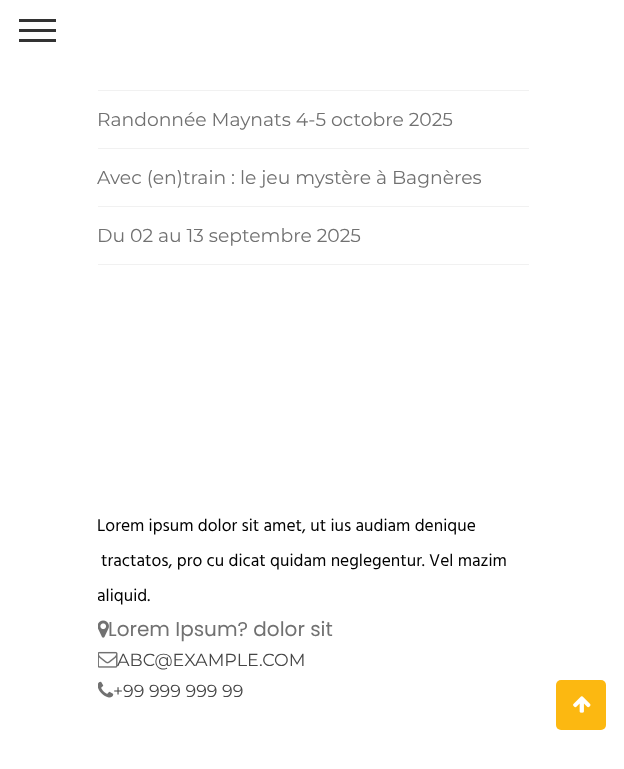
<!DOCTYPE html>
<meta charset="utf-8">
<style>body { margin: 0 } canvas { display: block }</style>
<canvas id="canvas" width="624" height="769"></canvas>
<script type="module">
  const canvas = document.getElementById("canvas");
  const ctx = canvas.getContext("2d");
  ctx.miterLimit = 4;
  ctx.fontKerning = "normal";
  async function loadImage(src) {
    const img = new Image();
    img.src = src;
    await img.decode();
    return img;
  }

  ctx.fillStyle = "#ffffff";
  ctx.fillRect(0, 0, 624, 769);
  ctx.fillStyle = "#333333";
  ctx.fillRect(19, 19, 37, 3);
  ctx.fillRect(19, 29, 37, 3);
  ctx.fillRect(19, 39, 37, 3);
  ctx.fillStyle = "#f1f1f1";
  ctx.fillRect(98, 90, 431, 1);
  ctx.fillRect(98, 148, 431, 1);
  ctx.font = "18.75px Montserrat";
  ctx.fillStyle = "#717171";
  ctx.fillText("Randonnée Maynats 4-5 octobre 2025", 97, 126);
  ctx.fillStyle = "#f1f1f1";
  ctx.fillRect(98, 206, 431, 1);
  ctx.fillStyle = "#717171";
  ctx.fillText("Avec (en)train : le jeu mystère à Bagnères", 97, 184);
  ctx.fillStyle = "#f1f1f1";
  ctx.fillRect(98, 264, 431, 1);
  ctx.fillStyle = "#717171";
  ctx.fillText("Du 02 au 13 septembre 2025", 97, 242);
  ctx.font = "17.5px Hind";
  ctx.fillStyle = "#000000";
  ctx.fillText("Lorem ipsum dolor sit amet, ut ius audiam denique", 97, 531);
  ctx.fillText("tractatos, pro cu dicat quidam neglegentur. Vel mazim", 101, 566);
  ctx.save();
  ctx.beginPath();
  ctx.rect(98, 479, 431, 247);
  ctx.clip();
  ctx.fillText("aliquid.", 97, 601);
  ctx.restore();
  ctx.drawImage(await loadImage("img1.png"), 98, 620, 11, 18);
  ctx.font = "20px Poppins";
  ctx.fillStyle = "#717171";
  ctx.fillText("Lorem Ipsum? dolor sit", 108, 636);
  ctx.drawImage(await loadImage("img2.png"), 98, 651, 20, 17);
  ctx.font = "17.5px Montserrat";
  ctx.fillStyle = "#464646";
  ctx.fillText("ABC@EXAMPLE.COM", 117, 666);
  ctx.drawImage(await loadImage("img3.png"), 98, 681, 16, 17);
  ctx.fillText("+99 999 999 99", 113, 697);
  ctx.fillStyle = "#fcb811";
  ctx.beginPath();
  ctx.roundRect(556, 680, 50, 50, 5);
  ctx.fill();
  ctx.drawImage(await loadImage("img4.png"), 573, 696, 18, 17);
</script>
